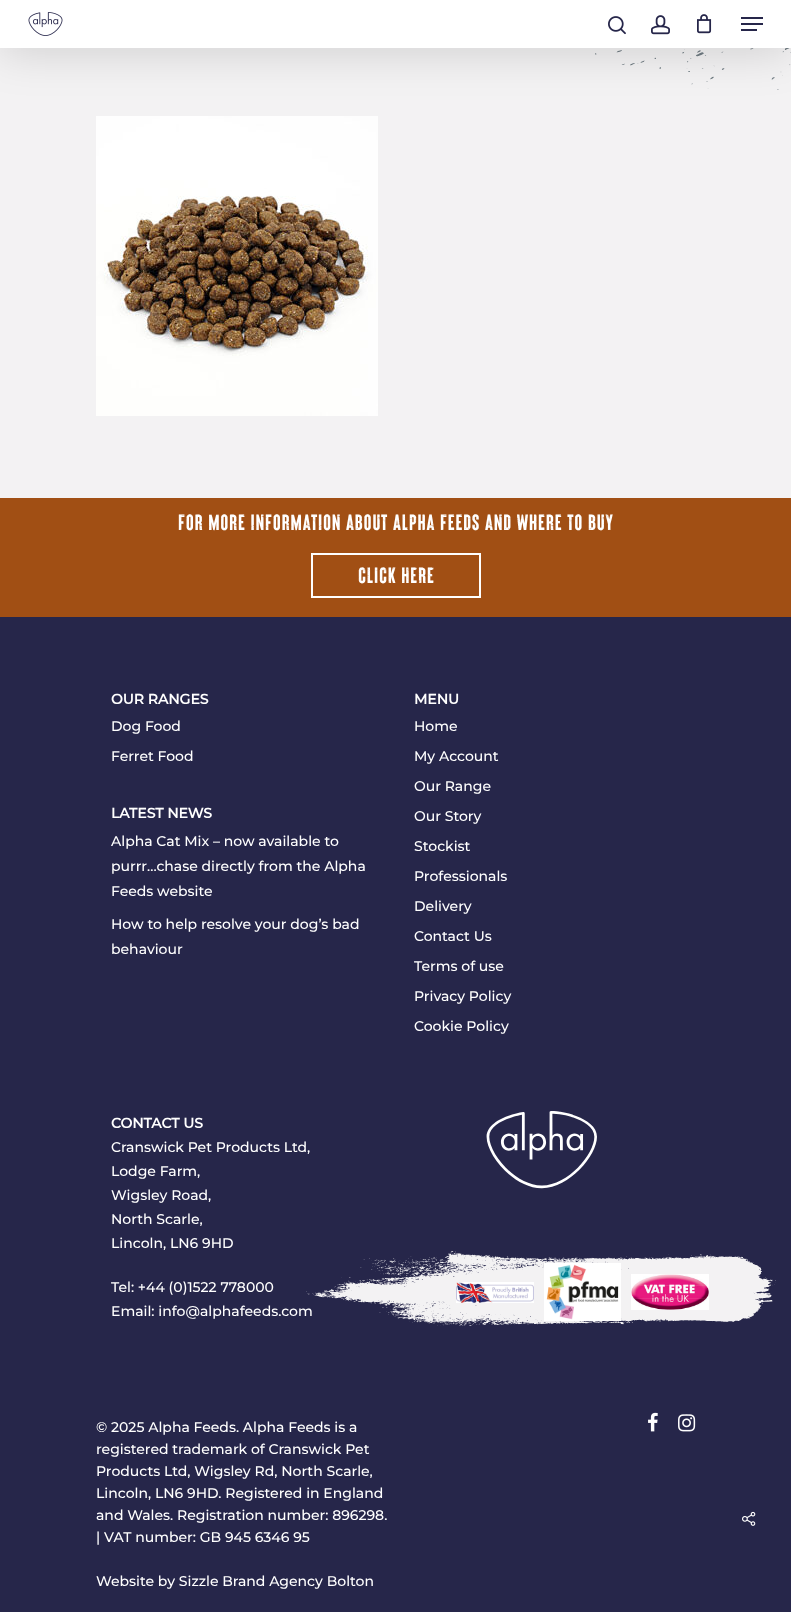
<!DOCTYPE html>
<meta charset="utf-8">
<style>body { margin: 0 } canvas { display: block }</style>
<canvas id="canvas" width="791" height="1612"></canvas>
<script type="module">
  const canvas = document.getElementById("canvas");
  const ctx = canvas.getContext("2d");
  ctx.miterLimit = 4;
  ctx.fontKerning = "normal";
  async function loadImage(src) {
    const img = new Image();
    img.src = src;
    await img.decode();
    return img;
  }

  ctx.fillStyle = "#f3f2f3";
  ctx.fillRect(0, 0, 791, 1612);
  ctx.drawImage(await loadImage("img5.png"), 595, 48, 196, 42);
  ctx.drawImage(await loadImage("img6.png"), 96, 116, 282, 300);
  ctx.fillStyle = "rgba(0, 0, 0, 0.15)";
  ctx.filter = "blur(22.5px)";
  ctx.beginPath();
  ctx.rect(0, 3, 791, 48);
  ctx.fill();
  ctx.filter = "none";
  ctx.fillStyle = "#ffffff";
  ctx.fillRect(0, 0, 791, 48);
  ctx.drawImage(await loadImage("img1.png"), 28, 12, 35, 24);
  ctx.drawImage(await loadImage("img2.png"), 608, 16, 18, 19);
  ctx.drawImage(await loadImage("img3.png"), 651, 15, 19, 20);
  ctx.drawImage(await loadImage("img4.png"), 697, 14, 15, 20);
  ctx.fillStyle = "#26264a";
  ctx.fillRect(741, 17, 22, 2);
  ctx.fillRect(741, 29, 16, 2);
  ctx.fillRect(741, 23, 22, 2);
  ctx.fillRect(0, 617, 791, 995);
  ctx.fillStyle = "#a14f14";
  ctx.fillRect(0, 498, 791, 119);
  ctx.letterSpacing = "0.8px";
  ctx.font = "bold 22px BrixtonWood";
  ctx.fillStyle = "#ffffff";
  ctx.fillText("For more information about Alpha Feeds and where to buy", 178, 530);
  ctx.strokeStyle = "#ffffff";
  ctx.lineWidth = 2;
  ctx.strokeRect(312, 554, 168, 43);
  ctx.fillText("CLICK HERE", 358, 583);
  ctx.letterSpacing = "0px";
  ctx.font = "bold 14px Montserrat";
  ctx.fillText("OUR RANGES", 111, 704);
  ctx.font = "100 14px Montserrat";
  ctx.fillText("Dog Food", 111, 731);
  ctx.fillText("Ferret Food", 111, 761);
  ctx.font = "bold 14px Montserrat";
  ctx.fillText("LATEST NEWS", 111, 818);
  ctx.font = "100 14px Montserrat";
  ctx.fillText("Alpha Cat Mix – now available to", 111, 846);
  ctx.fillText("purrr…chase directly from the Alpha", 111, 871);
  ctx.fillText("Feeds website", 111, 896);
  ctx.fillText("How to help resolve your dog’s bad", 111, 929);
  ctx.fillText("behaviour", 111, 954);
  ctx.font = "bold 14px Montserrat";
  ctx.fillText("MENU", 414, 704);
  ctx.font = "100 14px Montserrat";
  ctx.fillText("Home", 414, 731);
  ctx.fillText("My Account", 414, 761);
  ctx.fillText("Our Range", 414, 791);
  ctx.fillText("Our Story", 414, 821);
  ctx.fillText("Stockist", 414, 851);
  ctx.fillText("Professionals", 414, 881);
  ctx.fillText("Delivery", 414, 911);
  ctx.fillText("Contact Us", 414, 941);
  ctx.fillText("Terms of use", 414, 971);
  ctx.fillText("Privacy Policy", 414, 1001);
  ctx.fillText("Cookie Policy", 414, 1031);
  ctx.font = "bold 14px Montserrat";
  ctx.fillText("CONTACT US", 111, 1128);
  ctx.font = "100 14px Montserrat";
  ctx.fillText("Cranswick Pet Products Ltd,", 111, 1152);
  ctx.fillText("Lodge Farm,", 111, 1176);
  ctx.fillText("Wigsley Road,", 111, 1200);
  ctx.fillText("North Scarle,", 111, 1224);
  ctx.fillText("Lincoln, LN6 9HD", 111, 1248);
  ctx.fillText("Tel: +44 (0)1522 778000", 111, 1292);
  ctx.fillText("Email: info@alphafeeds.com", 111, 1316);
  ctx.drawImage(await loadImage("img7.png"), 486, 1111, 111, 78);
  ctx.drawImage(await loadImage("img8.png"), 306, 1251, 470, 75);
  ctx.drawImage(await loadImage("img9.png"), 456, 1282, 78, 21);
  ctx.drawImage(await loadImage("img10.png"), 544, 1263, 77, 58);
  ctx.drawImage(await loadImage("img11.png"), 631, 1274, 78, 36);
  ctx.fillText("© 2025 Alpha Feeds. Alpha Feeds is a", 96, 1432);
  ctx.fillText("registered trademark of Cranswick Pet", 96, 1454);
  ctx.fillText("Products Ltd, Wigsley Rd, North Scarle,", 96, 1476);
  ctx.fillText("Lincoln, LN6 9HD. Registered in England", 96, 1498);
  ctx.fillText("and Wales. Registration number: 896298.", 96, 1520);
  ctx.fillText("| VAT number: GB 945 6346 95", 96, 1542);
  ctx.fillText("Website by Sizzle Brand Agency Bolton", 96, 1586);
  ctx.drawImage(await loadImage("img12.png"), 648, 1412, 10, 20);
  ctx.drawImage(await loadImage("img13.png"), 678, 1414, 18, 18);
  ctx.drawImage(await loadImage("img14.png"), 742, 1511, 14, 15);
</script>
